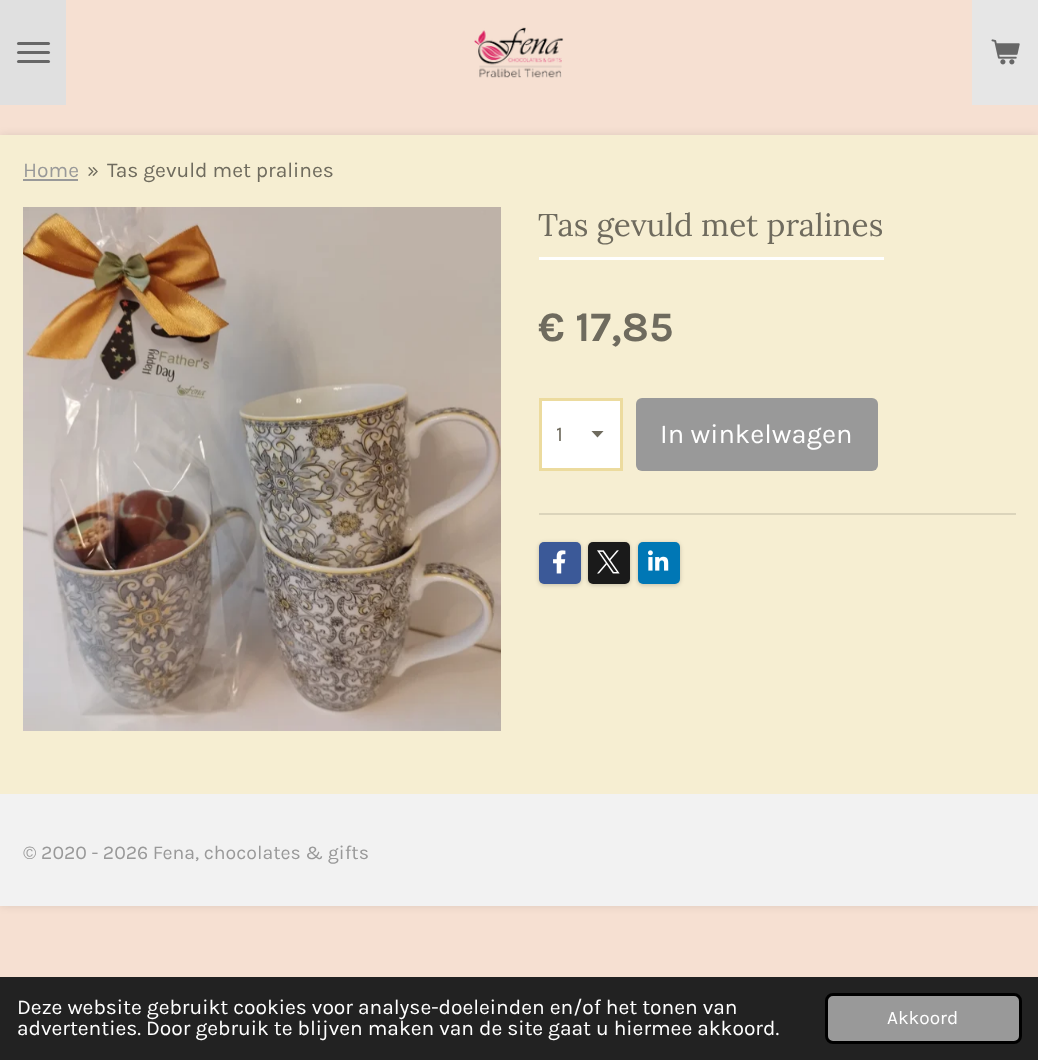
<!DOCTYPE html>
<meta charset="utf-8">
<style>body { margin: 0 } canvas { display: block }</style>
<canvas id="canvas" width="1038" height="1060"></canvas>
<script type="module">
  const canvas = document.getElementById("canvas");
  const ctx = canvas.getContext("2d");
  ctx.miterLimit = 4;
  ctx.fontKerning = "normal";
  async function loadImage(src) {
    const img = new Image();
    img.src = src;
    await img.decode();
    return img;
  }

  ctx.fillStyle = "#f6e0d2";
  ctx.fillRect(0, 0, 1038, 1060);
  ctx.fillStyle = "#e0e0e0";
  ctx.fillRect(0, 0, 66, 105);
  ctx.fillStyle = "#676767";
  ctx.beginPath();
  ctx.roundRect(17, 51, 33, 3, 1.5);
  ctx.fill();
  ctx.beginPath();
  ctx.roundRect(17, 42, 33, 3, 1.5);
  ctx.fill();
  ctx.beginPath();
  ctx.roundRect(17, 60, 33, 3, 1.5);
  ctx.fill();
  ctx.drawImage(await loadImage("img1.png"), 474, 27, 90, 51);
  ctx.fillStyle = "#e6e6e6";
  ctx.fillRect(972, 0, 66, 105);
  ctx.drawImage(await loadImage("img2.png"), 991, 39, 29, 26);
  ctx.fillStyle = "rgba(0, 0, 0, 0.1)";
  ctx.filter = "blur(4px)";
  ctx.beginPath();
  ctx.rect(0, 135, 1038, 771);
  ctx.fill();
  ctx.filter = "none";
  ctx.fillStyle = "#f6eed2";
  ctx.fillRect(0, 135, 1038, 659);
  ctx.font = "21px Karla";
  ctx.fillStyle = "#999999";
  ctx.fillText("Home", 23, 177);
  ctx.fillRect(23, 179, 55, 2);
  ctx.fillStyle = "#6f6b5e";
  ctx.fillText("»", 87, 177);
  ctx.fillText("Tas gevuld met pralines", 107, 177);
  ctx.drawImage(await loadImage("img3.png"), 23, 207, 478, 524);
  ctx.fillStyle = "#ffffff";
  ctx.fillRect(539, 257, 345, 3);
  ctx.font = "31.5px Lora";
  ctx.fillStyle = "#6f6b5e";
  ctx.fillText("Tas gevuld met pralines", 538, 236);
  ctx.font = "bold 42px Karla";
  ctx.fillText("€ 17,85", 538, 341);
  ctx.fillStyle = "#ffffff";
  ctx.fillRect(542, 401, 78, 67);
  ctx.save();
  ctx.beginPath();
  ctx.rect(591, 431, 14, 7);
  ctx.clip();
  ctx.fillStyle = "#6f6b5e";
  ctx.beginPath();
  ctx.moveTo(597.5, 437.5);
  ctx.lineTo(591, 430.5);
  ctx.lineTo(604, 430.5);
  ctx.closePath();
  ctx.fill();
  ctx.restore();
  ctx.strokeStyle = "#ecdb9e";
  ctx.lineWidth = 3;
  ctx.strokeRect(540.5, 399.5, 81, 70);
  ctx.font = "21px Karla";
  ctx.fillStyle = "#6f6b5e";
  ctx.fillText("1", 556, 441);
  ctx.fillStyle = "#999999";
  ctx.beginPath();
  ctx.roundRect(636, 398, 242, 73, 6);
  ctx.fill();
  ctx.font = "27.25px Karla";
  ctx.fillStyle = "#ffffff";
  ctx.fillText("In winkelwagen", 660, 443);
  ctx.fillStyle = "#dbd4bb";
  ctx.fillRect(539, 513, 477, 2);
  ctx.fillStyle = "rgba(0, 0, 0, 0.2)";
  ctx.filter = "blur(2px)";
  ctx.beginPath();
  ctx.roundRect(539, 543, 42, 42, 5);
  ctx.fill();
  ctx.filter = "none";
  ctx.fillStyle = "#3b5998";
  ctx.beginPath();
  ctx.roundRect(539, 542, 42, 42, 5);
  ctx.fill();
  ctx.drawImage(await loadImage("img4.png"), 553, 550, 13, 24);
  ctx.fillStyle = "rgba(0, 0, 0, 0.2)";
  ctx.filter = "blur(2px)";
  ctx.beginPath();
  ctx.roundRect(588, 543, 42, 42, 5);
  ctx.fill();
  ctx.filter = "none";
  ctx.fillStyle = "#1a1a1a";
  ctx.beginPath();
  ctx.roundRect(588, 542, 42, 42, 5);
  ctx.fill();
  ctx.drawImage(await loadImage("img5.png"), 597, 550, 23, 24);
  ctx.fillStyle = "rgba(0, 0, 0, 0.2)";
  ctx.filter = "blur(2px)";
  ctx.beginPath();
  ctx.roundRect(638, 543, 42, 42, 5);
  ctx.fill();
  ctx.filter = "none";
  ctx.fillStyle = "#0077b5";
  ctx.beginPath();
  ctx.roundRect(638, 542, 42, 42, 5);
  ctx.fill();
  ctx.drawImage(await loadImage("img6.png"), 648, 550, 21, 21);
  ctx.fillStyle = "#f2f2f2";
  ctx.fillRect(0, 794, 1038, 112);
  ctx.font = "19.5px Karla";
  ctx.fillStyle = "#999999";
  ctx.fillText("© 2020 - 2026 Fena, chocolates & gifts", 23, 859);
  ctx.fillStyle = "#222222";
  ctx.fillRect(0, 977, 1038, 83);
  ctx.font = "21px Karla";
  ctx.fillStyle = "#ffffff";
  ctx.fillText("Deze website gebruikt cookies voor analyse-doeleinden en/of het tonen van", 17, 1014);
  ctx.fillText("advertenties. Door gebruik te blijven maken van de site gaat u hiermee akkoord.", 17, 1035);
  ctx.fillStyle = "#999999";
  ctx.beginPath();
  ctx.roundRect(826.5, 994.5, 194, 48, 6.5);
  ctx.fill();
  ctx.strokeStyle = "#000000";
  ctx.stroke();
  ctx.font = "19px Karla";
  ctx.fillStyle = "#ffffff";
  ctx.fillText("Akkoord", 887, 1024);
</script>
